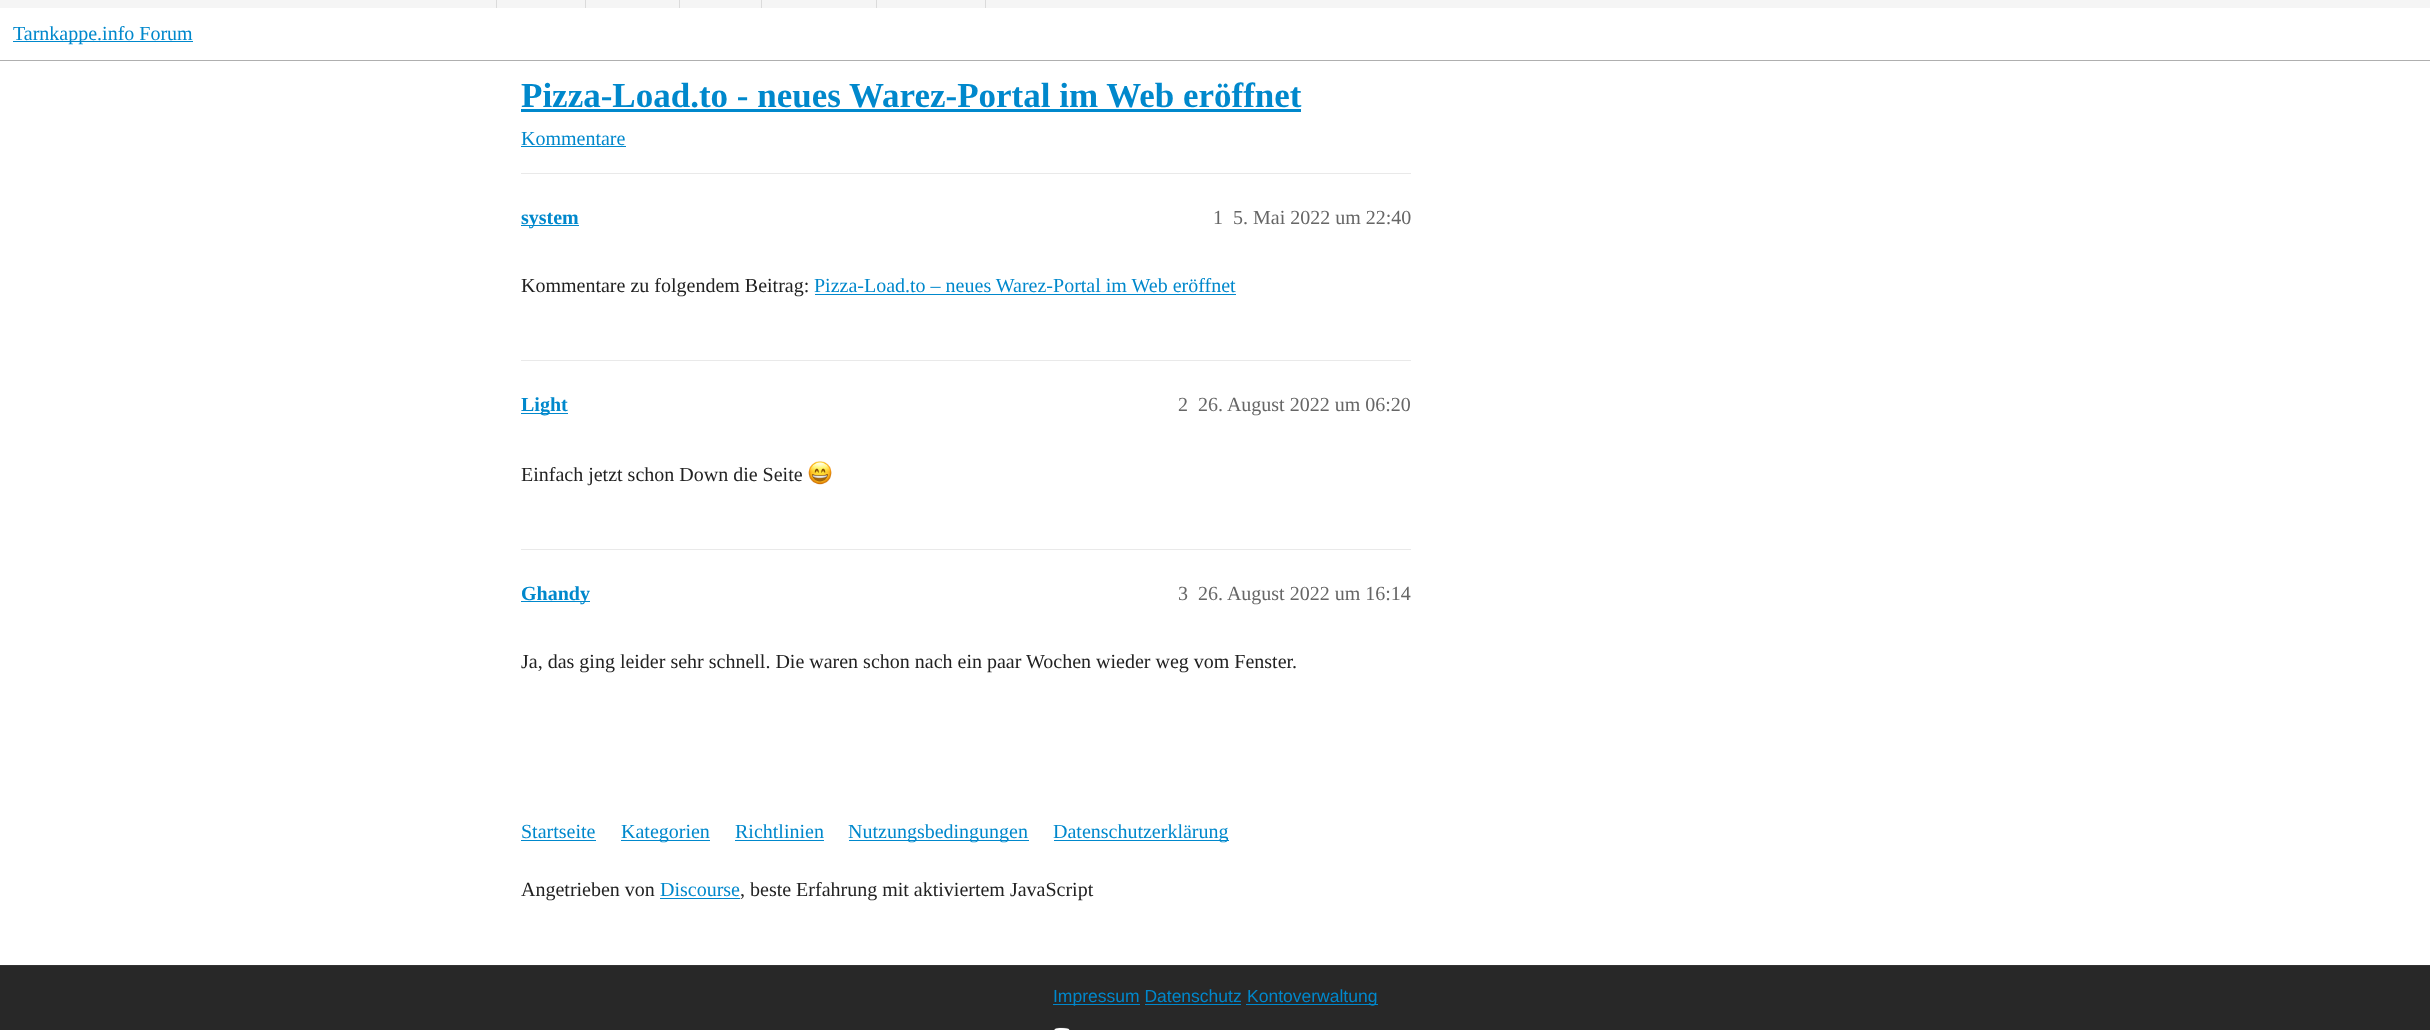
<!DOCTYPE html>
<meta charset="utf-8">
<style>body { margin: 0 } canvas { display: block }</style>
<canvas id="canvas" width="2430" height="1030"></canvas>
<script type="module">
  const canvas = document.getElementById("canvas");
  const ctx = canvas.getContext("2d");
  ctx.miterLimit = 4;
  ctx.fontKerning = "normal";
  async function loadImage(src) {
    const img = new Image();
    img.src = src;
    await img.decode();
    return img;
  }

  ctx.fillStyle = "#ffffff";
  ctx.fillRect(0, 0, 2430, 1030);
  ctx.fillStyle = "#f5f5f5";
  ctx.fillRect(0, 0, 2430, 8);
  ctx.fillStyle = "#dbdbdb";
  ctx.fillRect(496, 0, 1, 8);
  ctx.fillRect(585, 0, 1, 8);
  ctx.fillRect(679, 0, 1, 8);
  ctx.fillRect(761, 0, 1, 8);
  ctx.fillRect(876, 0, 1, 8);
  ctx.fillRect(985, 0, 1, 8);
  ctx.fillStyle = "#afafaf";
  ctx.fillRect(0, 60, 2430, 1);
  ctx.fillStyle = "#0088cc";
  ctx.fillRect(13, 41, 180, 1);
  ctx.font = "20px Liberation Serif";
  ctx.fillText("Tarnkappe.info Forum", 13, 40);
  ctx.font = "bold 35px Liberation Serif";
  ctx.fillText("Pizza-Load.to - neues Warez-Portal im Web eröffnet", 521, 107);
  ctx.fillRect(521, 109, 780, 3);
  ctx.font = "20px Liberation Serif";
  ctx.fillText("Kommentare", 521, 145);
  ctx.fillRect(521, 146, 105, 1);
  ctx.fillStyle = "#e9e9e9";
  ctx.fillRect(521, 173, 890, 1);
  ctx.fillStyle = "#0088cc";
  ctx.fillRect(521, 225, 58, 1);
  ctx.font = "bold 20px Liberation Serif";
  ctx.fillText("system", 521, 224);
  ctx.font = "20px Liberation Serif";
  ctx.fillStyle = "#666666";
  ctx.fillText("1", 1213, 224);
  ctx.fillText("5. Mai 2022 um 22:40", 1233, 224);
  ctx.fillStyle = "#222222";
  ctx.fillText("Kommentare zu folgendem Beitrag:", 521, 292);
  ctx.fillStyle = "#0088cc";
  ctx.fillText("Pizza-Load.to – neues Warez-Portal im Web eröffnet", 814, 292);
  ctx.fillRect(815, 294, 421, 1);
  ctx.fillStyle = "#e9e9e9";
  ctx.fillRect(521, 360, 890, 1);
  ctx.fillStyle = "#0088cc";
  ctx.fillRect(521, 413, 47, 1);
  ctx.font = "bold 20px Liberation Serif";
  ctx.fillText("Light", 521, 411);
  ctx.font = "20px Liberation Serif";
  ctx.fillStyle = "#666666";
  ctx.fillText("2", 1178, 411);
  ctx.fillText("26. August 2022 um 06:20", 1198, 411);
  ctx.fillStyle = "#222222";
  ctx.fillText("Einfach jetzt schon Down die Seite", 521, 481);
  ctx.drawImage(await loadImage("img1.png"), 808, 461, 24, 24);
  ctx.fillStyle = "#e9e9e9";
  ctx.fillRect(521, 549, 890, 1);
  ctx.fillStyle = "#0088cc";
  ctx.fillRect(521, 601, 69, 1);
  ctx.font = "bold 20px Liberation Serif";
  ctx.fillText("Ghandy", 521, 600);
  ctx.font = "20px Liberation Serif";
  ctx.fillStyle = "#666666";
  ctx.fillText("3", 1178, 600);
  ctx.fillText("26. August 2022 um 16:14", 1198, 600);
  ctx.fillStyle = "#222222";
  ctx.fillText("Ja, das ging leider sehr schnell. Die waren schon nach ein paar Wochen wieder weg vom Fenster.", 521, 668);
  ctx.fillStyle = "#0088cc";
  ctx.fillText("Startseite", 521, 838);
  ctx.fillRect(521, 840, 75, 1);
  ctx.fillRect(621, 840, 89, 1);
  ctx.fillText("Kategorien", 621, 838);
  ctx.fillText("Richtlinien", 735, 838);
  ctx.fillRect(735, 840, 89, 1);
  ctx.fillRect(849, 840, 180, 1);
  ctx.fillText("Nutzungsbedingungen", 848, 838);
  ctx.fillRect(1054, 840, 175, 1);
  ctx.fillText("Datenschutzerklärung", 1053, 838);
  ctx.fillStyle = "#222222";
  ctx.fillText("Angetrieben von", 521, 896);
  ctx.fillStyle = "#0088cc";
  ctx.fillText("Discourse", 660, 896);
  ctx.fillRect(660, 898, 80, 1);
  ctx.fillStyle = "#222222";
  ctx.fillText(", beste Erfahrung mit aktiviertem JavaScript", 740, 896);
  ctx.fillStyle = "#282828";
  ctx.fillRect(0, 966, 2430, 64);
  ctx.fillStyle = "#333333";
  ctx.fillRect(0, 965, 2430, 1);
  ctx.fillStyle = "#0088cc";
  ctx.fillRect(1053, 1004, 87, 1);
  ctx.font = "17.5px Liberation Sans";
  ctx.fillText("Impressum Datenschutz", 1053, 1002);
  ctx.fillRect(1246, 1004, 132, 1);
  ctx.fillText("Kontoverwaltung", 1247, 1002);
  ctx.fillRect(1145, 1004, 96, 1);
  ctx.drawImage(await loadImage("img2.png"), 1054, 1027, 16, 3);
</script>
